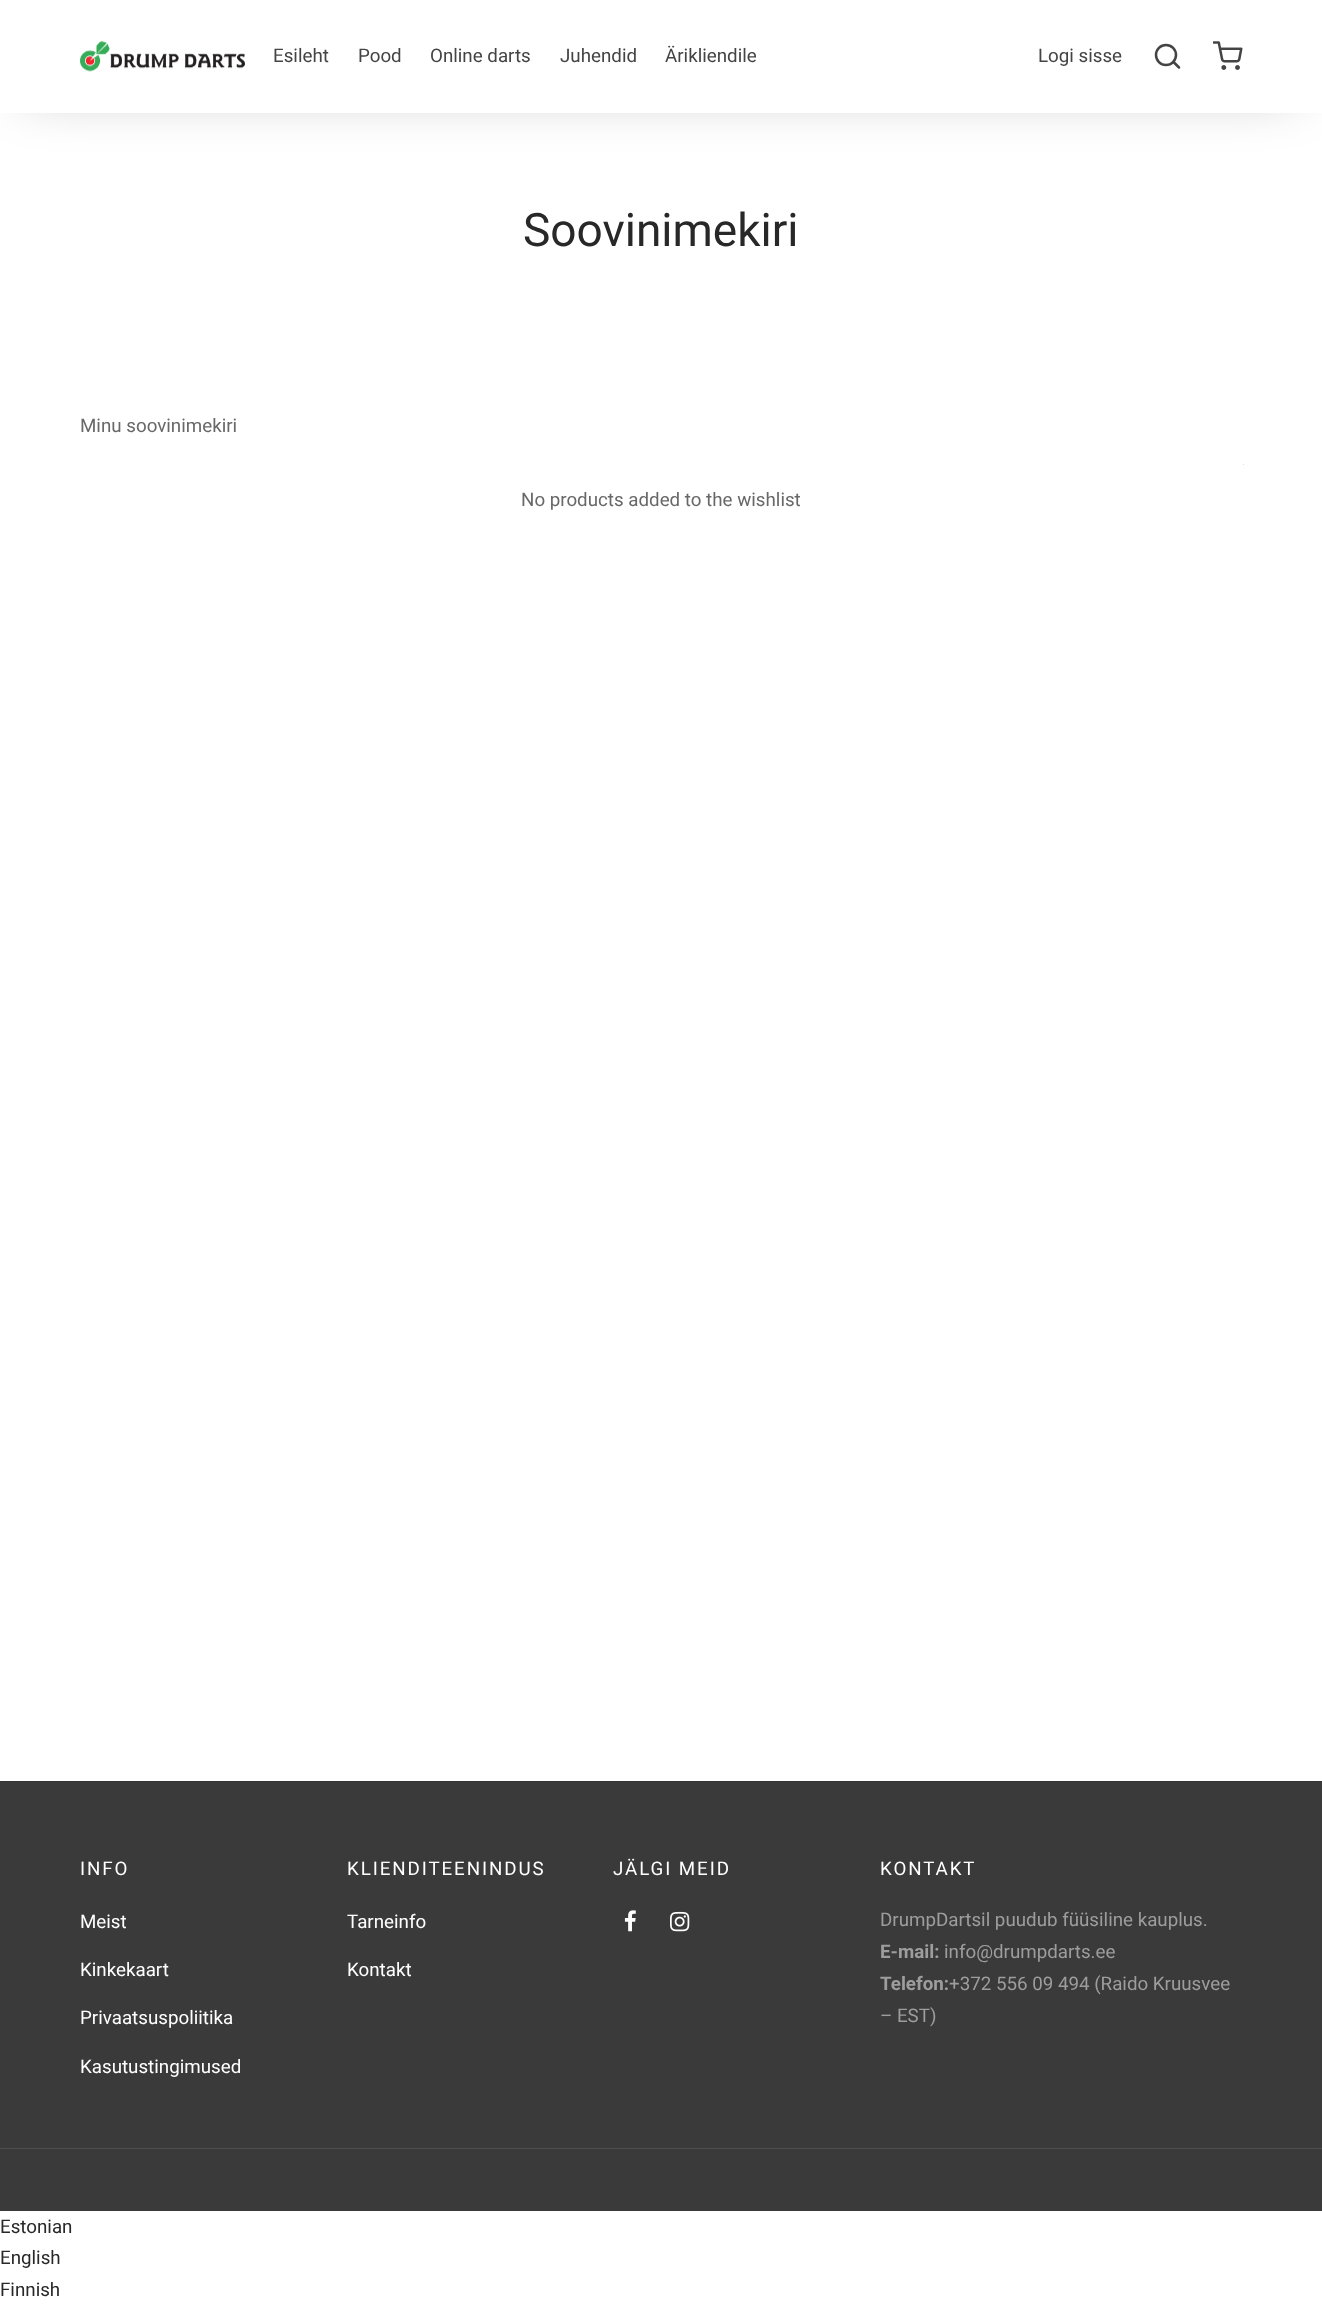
<!DOCTYPE html>
<meta charset="utf-8">
<style>body { margin: 0 } canvas { display: block }</style>
<canvas id="canvas" width="1322" height="2308"></canvas>
<script type="module">
  const canvas = document.getElementById("canvas");
  const ctx = canvas.getContext("2d");
  ctx.miterLimit = 4;
  ctx.fontKerning = "normal";
  async function loadImage(src) {
    const img = new Image();
    img.src = src;
    await img.decode();
    return img;
  }

  ctx.fillStyle = "#ffffff";
  ctx.fillRect(0, 0, 1322, 2308);
  ctx.fillStyle = "rgba(0, 0, 0, 0.3)";
  ctx.filter = "blur(28px)";
  ctx.beginPath();
  ctx.rect(23, 28, 1272, 62);
  ctx.fill();
  ctx.filter = "none";
  ctx.fillStyle = "#ffffff";
  ctx.fillRect(0, 0, 1322, 113);
  ctx.drawImage(await loadImage("img1.png"), 80, 41, 165, 31);
  ctx.font = "18.75px Roboto";
  ctx.fillStyle = "#444444";
  ctx.fillText("Esileht", 273, 62);
  ctx.fillText("Pood", 358, 62);
  ctx.fillText("Online darts", 430, 62);
  ctx.fillText("Juhendid", 560, 62);
  ctx.fillText("Ärikliendile", 665, 62);
  ctx.fillText("Logi sisse", 1038, 62);
  ctx.beginPath();
  ctx.arc(1166, 55, 10, 0, Math.PI * 2);
  ctx.strokeStyle = "#444444";
  ctx.lineWidth = 2.5;
  ctx.stroke();
  ctx.beginPath();
  ctx.moveTo(1179, 67.5);
  ctx.lineTo(1173.5, 62);
  ctx.lineCap = "round";
  ctx.lineJoin = "round";
  ctx.stroke();
  ctx.drawImage(await loadImage("img2.png"), 1213, 41, 30, 29);
  ctx.font = "46px Roboto";
  ctx.fillStyle = "#282828";
  ctx.fillText("Soovinimekiri", 523, 246);
  ctx.font = "18.75px Roboto";
  ctx.fillStyle = "#686868";
  ctx.fillText("Minu soovinimekiri", 80, 432);
  ctx.fillStyle = "#dddddd";
  ctx.fillRect(1243, 464, 1, 1);
  ctx.fillStyle = "#686868";
  ctx.fillText("No products added to the wishlist", 521, 506);
  ctx.fillStyle = "#3a3a3a";
  ctx.fillRect(0, 1782, 1322, 429);
  ctx.fillStyle = "#343434";
  ctx.fillRect(0, 1781, 1322, 1);
  ctx.letterSpacing = "1.9px";
  ctx.fillStyle = "#ffffff";
  ctx.fillText("INFO", 80, 1875);
  ctx.letterSpacing = "0px";
  ctx.fillText("Meist", 80, 1928);
  ctx.fillText("Kinkekaart", 80, 1976);
  ctx.fillText("Privaatsuspoliitika", 80, 2024);
  ctx.fillText("Kasutustingimused", 80, 2073);
  ctx.letterSpacing = "1.9px";
  ctx.fillText("KLIENDITEENINDUS", 347, 1875);
  ctx.letterSpacing = "0px";
  ctx.fillText("Tarneinfo", 347, 1928);
  ctx.fillText("Kontakt", 347, 1976);
  ctx.letterSpacing = "1.9px";
  ctx.fillText("JÄLGI MEID", 613, 1875);
  ctx.drawImage(await loadImage("img3.png"), 624, 1910, 12, 22);
  ctx.drawImage(await loadImage("img4.png"), 670, 1911, 20, 21);
  ctx.fillText("KONTAKT", 880, 1875);
  ctx.letterSpacing = "0px";
  ctx.fillStyle = "#9d9d9d";
  ctx.fillText("DrumpDartsil puudub füüsiline kauplus.", 880, 1926);
  ctx.font = "bold 18.75px Roboto";
  ctx.fillText("E-mail:", 880, 1958);
  ctx.font = "18.75px Roboto";
  ctx.fillText("info@drumpdarts.ee", 944, 1958);
  ctx.font = "bold 18.75px Roboto";
  ctx.fillText("Telefon:", 880, 1990);
  ctx.font = "18.75px Roboto";
  ctx.fillText("+372 556 09 494 (Raido Kruusvee", 949, 1990);
  ctx.fillText("– EST)", 880, 2022);
  ctx.fillStyle = "#4e4e4e";
  ctx.fillRect(0, 2148, 1322, 1);
  ctx.fillStyle = "#282828";
  ctx.fillText("Estonian", 0, 2233);
  ctx.fillText("English", 0, 2264);
  ctx.fillText("Finnish", 0, 2296);
</script>
